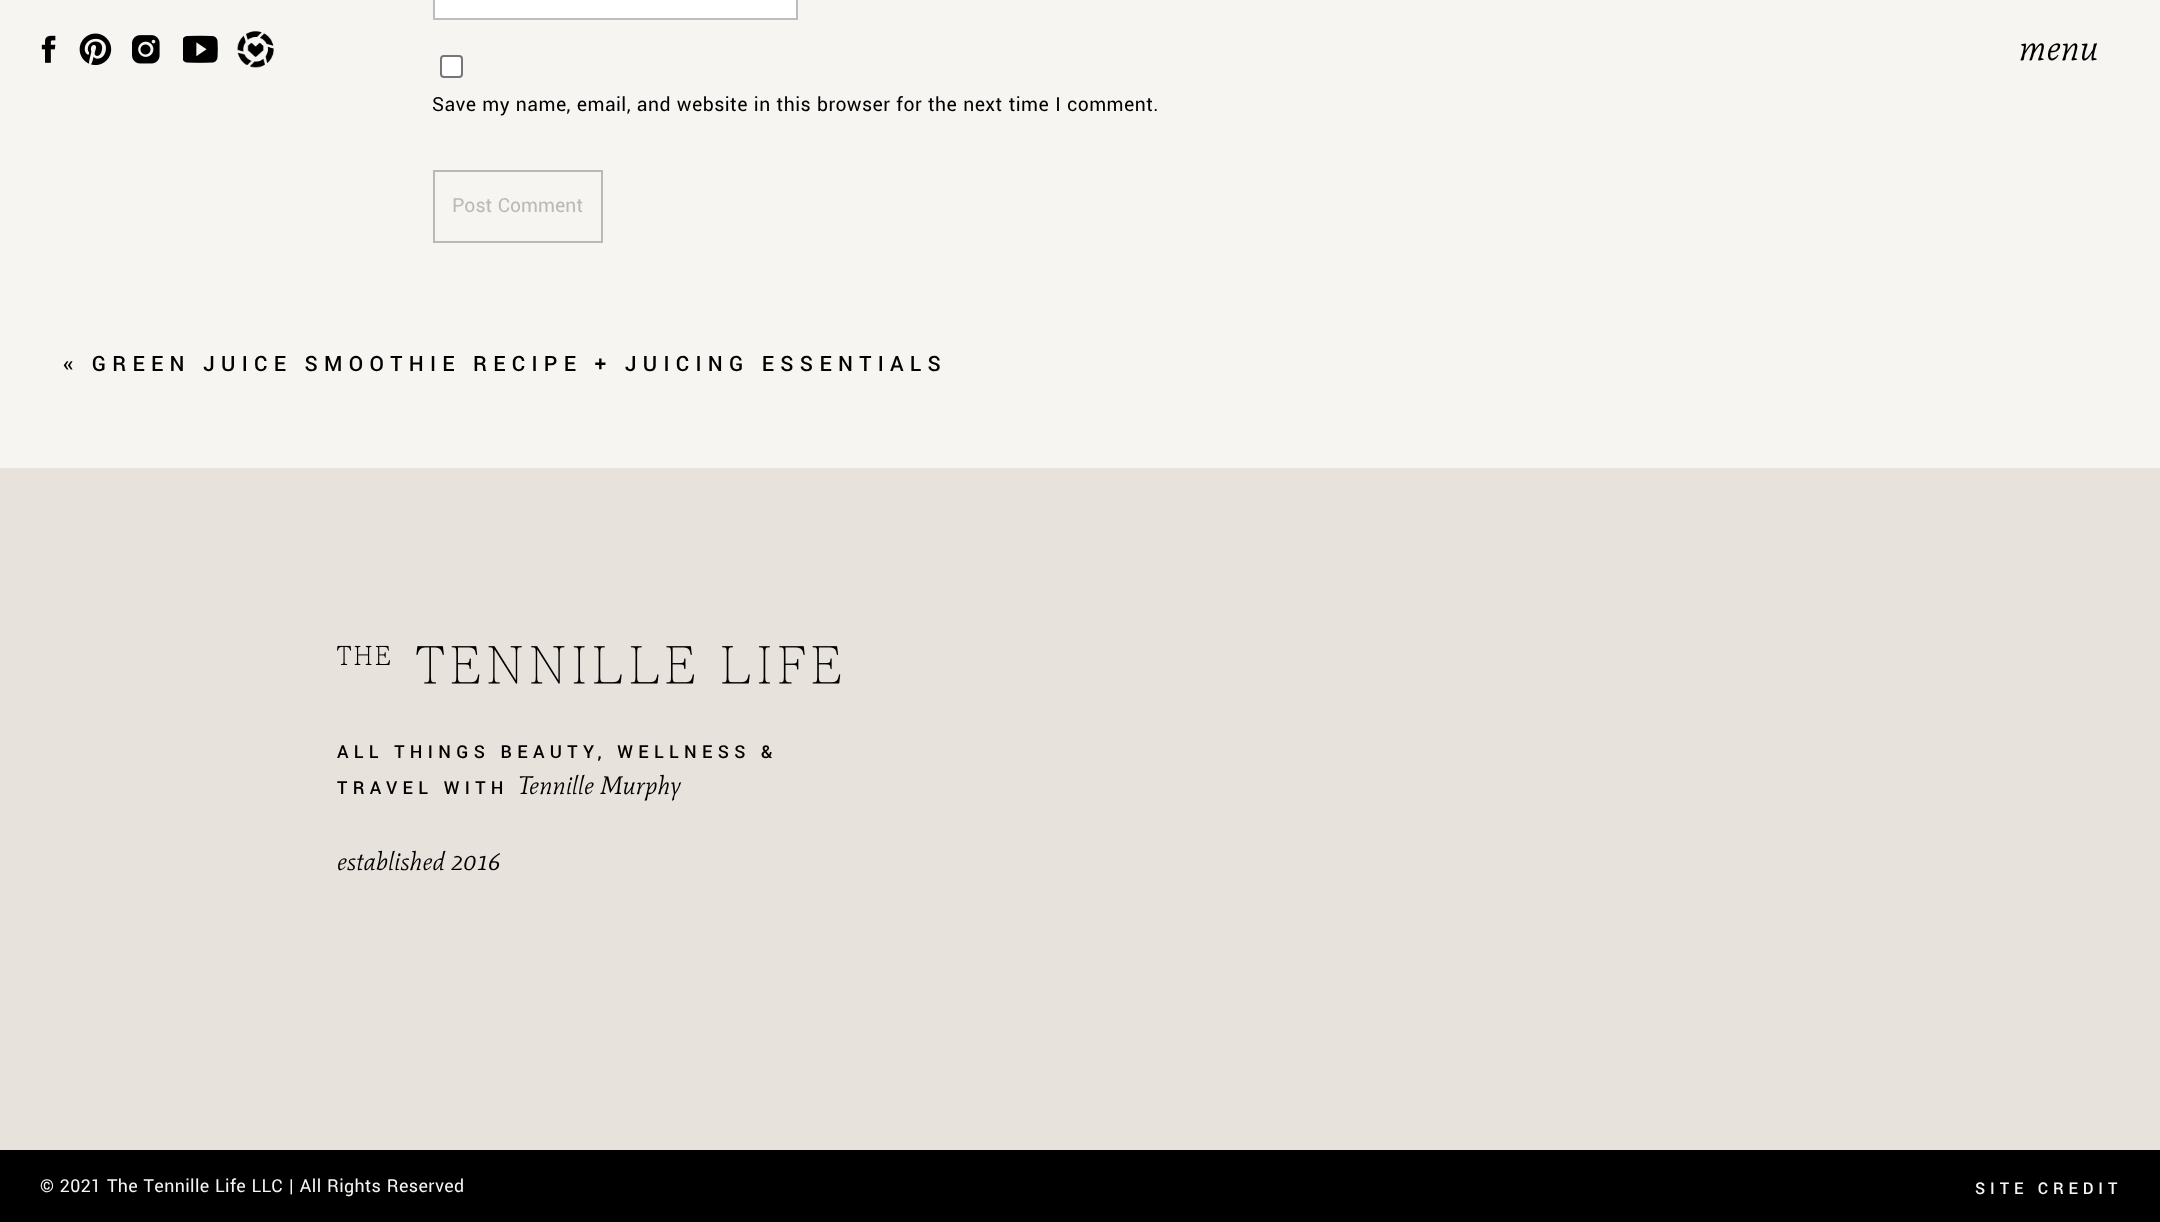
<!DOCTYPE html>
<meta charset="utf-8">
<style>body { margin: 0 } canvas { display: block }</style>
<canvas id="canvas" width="2160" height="1222"></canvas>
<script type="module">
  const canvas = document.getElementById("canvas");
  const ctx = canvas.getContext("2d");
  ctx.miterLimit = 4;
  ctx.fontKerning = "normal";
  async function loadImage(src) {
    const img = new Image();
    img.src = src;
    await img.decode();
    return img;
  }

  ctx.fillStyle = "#f7f5f2";
  ctx.fillRect(0, 0, 2160, 1222);
  ctx.drawImage(await loadImage("img1.png"), 41, 35, 15, 28);
  ctx.drawImage(await loadImage("img2.png"), 79, 33, 33, 33);
  ctx.drawImage(await loadImage("img3.png"), 132, 35, 28, 29);
  ctx.drawImage(await loadImage("img4.png"), 183, 35, 35, 28);
  ctx.drawImage(await loadImage("img5.png"), 237, 31, 37, 37);
  ctx.font = "italic 36px Mate";
  ctx.fillStyle = "#000000";
  ctx.fillText("menu", 2019, 60);
  ctx.fillStyle = "#ffffff";
  ctx.beginPath();
  ctx.rect(434, -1, 363, 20);
  ctx.fill();
  ctx.strokeStyle = "#bdbdbd";
  ctx.lineWidth = 2;
  ctx.stroke();
  ctx.beginPath();
  ctx.roundRect(441, 56, 21, 21, 3);
  ctx.fill();
  ctx.strokeStyle = "#767676";
  ctx.stroke();
  ctx.letterSpacing = "0.43px";
  ctx.font = "21.6px Yantramanav";
  ctx.fillStyle = "#000000";
  ctx.fillText("Save my name, email, and website in this browser for the next time I comment.", 432, 111);
  ctx.strokeStyle = "#bab9b8";
  ctx.strokeRect(434, 171, 168, 71);
  ctx.letterSpacing = "0px";
  ctx.fillStyle = "#bab9b8";
  ctx.fillText("Post Comment", 452, 212);
  ctx.letterSpacing = "6.3px";
  ctx.font = "500 23.4px Yantramanav";
  ctx.fillStyle = "#000000";
  ctx.fillText("« GREEN JUICE SMOOTHIE RECIPE + JUICING ESSENTIALS", 63, 371);
  ctx.fillStyle = "#e7e2dc";
  ctx.fillRect(0, 468, 2160, 682);
  ctx.drawImage(await loadImage("img6.png"), 337, 645, 504, 39);
  ctx.letterSpacing = "5.35px";
  ctx.font = "500 19.8px Yantramanav";
  ctx.fillStyle = "#000000";
  ctx.fillText("ALL THINGS BEAUTY, WELLNESS &", 337, 758);
  ctx.fillText("TRAVEL WITH", 337, 794);
  ctx.letterSpacing = "0px";
  ctx.font = "italic 25.25px Mate";
  ctx.fillText("Tennille Murphy", 518, 794);
  ctx.fillText("established 2016", 337, 870);
  ctx.fillRect(0, 1150, 2160, 72);
  ctx.letterSpacing = "0.4px";
  ctx.font = "19.8px Yantramanav";
  ctx.fillStyle = "#f7f5f2";
  ctx.fillText("© 2021 The Tennille Life LLC | All Rights Reserved", 40, 1192);
  ctx.letterSpacing = "4.9px";
  ctx.font = "500 18px Yantramanav";
  ctx.fillText("SITE CREDIT", 1975, 1194);
</script>
